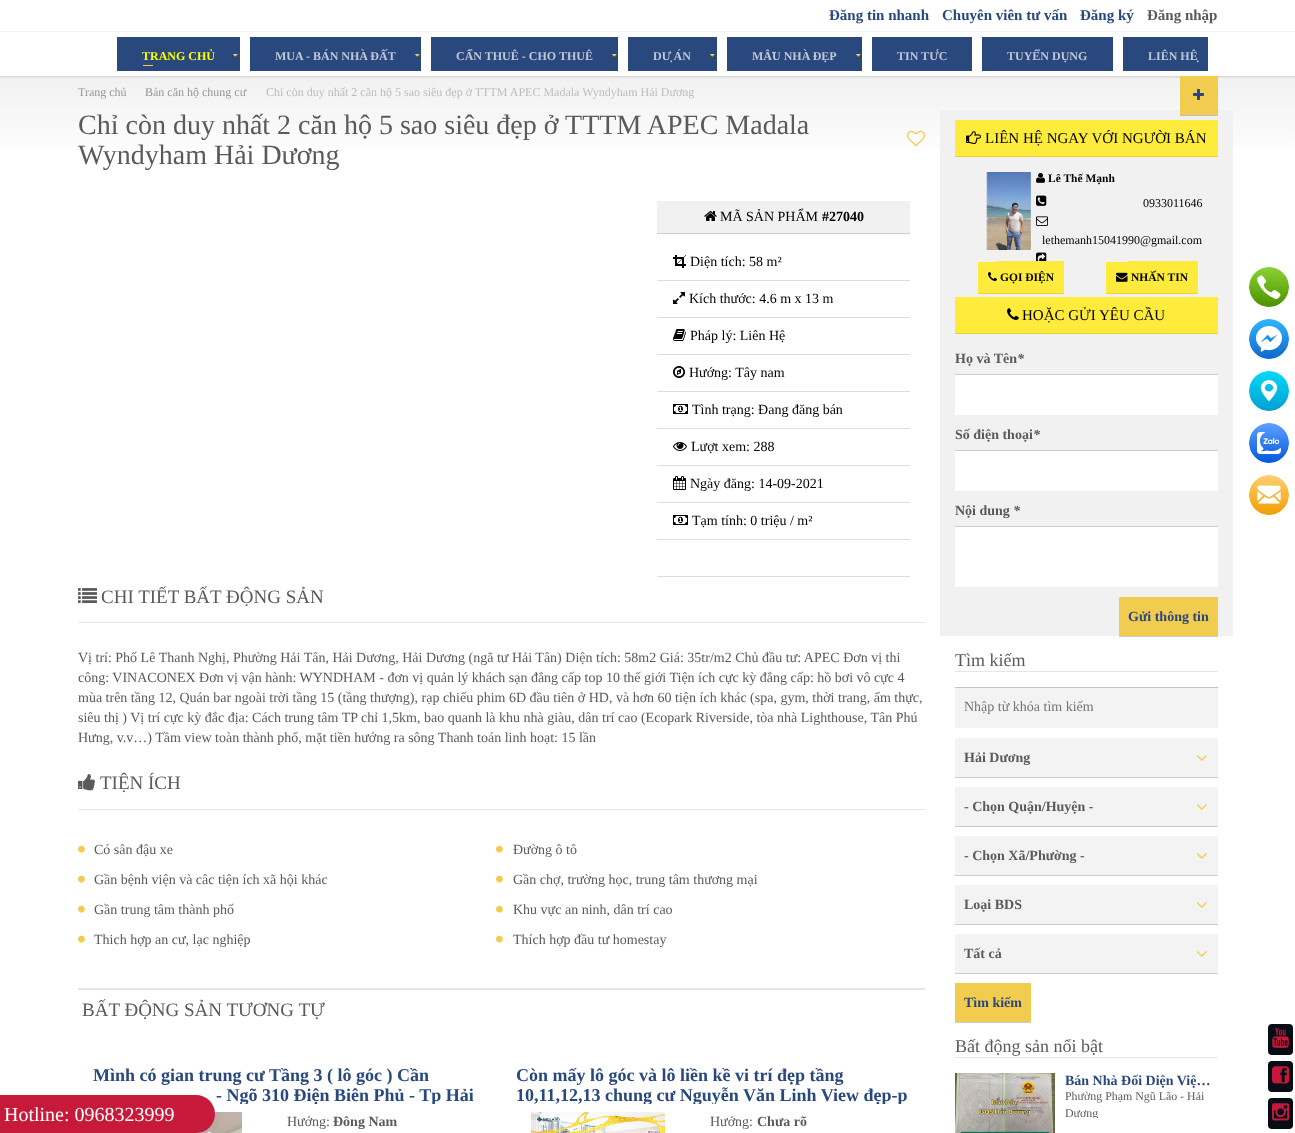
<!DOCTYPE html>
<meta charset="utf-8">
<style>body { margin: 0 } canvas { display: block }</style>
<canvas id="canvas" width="1295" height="1133"></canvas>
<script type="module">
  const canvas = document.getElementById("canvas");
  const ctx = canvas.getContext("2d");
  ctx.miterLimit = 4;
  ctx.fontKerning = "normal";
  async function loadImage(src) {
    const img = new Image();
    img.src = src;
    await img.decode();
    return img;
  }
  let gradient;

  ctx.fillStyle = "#ffffff";
  ctx.fillRect(0, 0, 1295, 1133);
  gradient = ctx.createLinearGradient(648, 76, 648, 186);
  gradient.addColorStop(0, "#f1f1f1");
  gradient.addColorStop(0.8, "#ffffff");
  ctx.fillStyle = gradient;
  ctx.fillRect(0, 76, 1295, 72);
  ctx.save();
  ctx.beginPath();
  ctx.rect(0, 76, 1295, 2);
  ctx.clip();
  ctx.fillStyle = "rgba(0, 0, 0, 0.15)";
  ctx.filter = "blur(1px)";
  ctx.beginPath();
  ctx.rect(0, 1, 1295, 76);
  ctx.fill();
  ctx.filter = "none";
  ctx.restore();
  ctx.fillStyle = "#f3f3f3";
  ctx.fillRect(0, 31, 1295, 1);
  ctx.font = "bold 15px Liberation Serif";
  ctx.fillStyle = "#29487d";
  ctx.fillText("Đăng tin nhanh", 829, 20);
  ctx.fillText("Chuyên viên tư vấn", 942, 20);
  ctx.fillText("Đăng ký", 1080, 20);
  ctx.fillStyle = "#5a5a5a";
  ctx.fillText("Đăng nhập", 1147, 20);
  ctx.fillStyle = "#29487d";
  ctx.fillRect(117, 37, 123, 34);
  ctx.font = "bold 12px Liberation Serif";
  ctx.fillStyle = "#ffff00";
  ctx.fillText("TRANG CHỦ", 142, 60);
  ctx.fillStyle = "#f2cc4f";
  ctx.fillRect(143, 65, 10, 1);
  ctx.drawImage(await loadImage("img1.png"), 233, 54, 5, 3);
  ctx.fillStyle = "#29487d";
  ctx.fillRect(250, 37, 171, 34);
  ctx.fillStyle = "#bfc8d8";
  ctx.fillText("MUA - BÁN NHÀ ĐẤT", 275, 60);
  ctx.drawImage(await loadImage("img1.png"), 415, 54, 5, 3);
  ctx.fillStyle = "#29487d";
  ctx.fillRect(431, 37, 187, 34);
  ctx.fillStyle = "#bfc8d8";
  ctx.fillText("CẦN THUÊ - CHO THUÊ", 456, 60);
  ctx.drawImage(await loadImage("img1.png"), 612, 54, 5, 3);
  ctx.fillStyle = "#29487d";
  ctx.fillRect(628, 37, 89, 34);
  ctx.fillStyle = "#bfc8d8";
  ctx.fillText("DỰ ÁN", 653, 60);
  ctx.drawImage(await loadImage("img1.png"), 710, 54, 5, 3);
  ctx.fillStyle = "#29487d";
  ctx.fillRect(727, 37, 135, 34);
  ctx.fillStyle = "#bfc8d8";
  ctx.fillText("MẪU NHÀ ĐẸP", 752, 60);
  ctx.drawImage(await loadImage("img1.png"), 856, 54, 5, 3);
  ctx.fillStyle = "#29487d";
  ctx.fillRect(872, 37, 100, 34);
  ctx.fillStyle = "#bfc8d8";
  ctx.fillText("TIN TỨC", 897, 60);
  ctx.fillStyle = "#29487d";
  ctx.fillRect(982, 37, 131, 34);
  ctx.fillStyle = "#bfc8d8";
  ctx.fillText("TUYỂN DỤNG", 1007, 60);
  ctx.fillStyle = "#29487d";
  ctx.fillRect(1123, 37, 85, 34);
  ctx.fillStyle = "#bfc8d8";
  ctx.fillText("LIÊN HỆ", 1148, 60);
  ctx.fillStyle = "#f1f1f1";
  ctx.fillRect(940, 110, 293, 526);
  ctx.fillStyle = "rgba(0, 0, 0, 0.2)";
  ctx.filter = "blur(0.5px)";
  ctx.beginPath();
  ctx.rect(1180, 77, 38, 39);
  ctx.fill();
  ctx.filter = "none";
  ctx.fillStyle = "#f2cc4f";
  ctx.fillRect(1180, 76, 38, 39);
  ctx.drawImage(await loadImage("img2.png"), 1193, 89, 11, 11);
  ctx.font = "12px Liberation Serif";
  ctx.fillStyle = "#979797";
  ctx.fillText("Trang chủ", 78, 96);
  ctx.fillText("Bán căn hộ chung cư", 145, 96);
  ctx.fillStyle = "#bdbdbd";
  ctx.fillText("Chỉ còn duy nhất 2 căn hộ 5 sao siêu đẹp ở TTTM APEC Madala Wyndyham Hải Dương", 266, 96);
  ctx.font = "28px Liberation Serif";
  ctx.fillStyle = "#5a5a5a";
  ctx.fillText("Chỉ còn duy nhất 2 căn hộ 5 sao siêu đẹp ở TTTM APEC Madala", 78, 134);
  ctx.fillText("Wyndyham Hải Dương", 78, 164);
  ctx.drawImage(await loadImage("img3.png"), 907, 130, 18, 17);
  ctx.fillStyle = "#f1f1f1";
  ctx.fillRect(657, 201, 253, 32);
  ctx.fillStyle = "#cccccc";
  ctx.fillRect(657, 233, 253, 1);
  ctx.drawImage(await loadImage("img4.png"), 704, 211, 13, 10);
  ctx.font = "14px Liberation Serif";
  ctx.fillStyle = "#000000";
  ctx.fillText("MÃ SẢN PHẨM", 720, 221);
  ctx.font = "bold 14px Liberation Serif";
  ctx.fillText("#27040", 822, 221);
  ctx.fillStyle = "#dddddd";
  ctx.fillRect(657, 280, 253, 1);
  ctx.drawImage(await loadImage("img5.png"), 673, 255, 13, 13);
  ctx.font = "14px Liberation Serif";
  ctx.fillStyle = "#000000";
  ctx.fillText("Diện tích: 58 m²", 690, 266);
  ctx.fillStyle = "#dddddd";
  ctx.fillRect(657, 317, 253, 1);
  ctx.drawImage(await loadImage("img6.png"), 673, 292, 12, 12);
  ctx.fillStyle = "#000000";
  ctx.fillText("Kích thước: 4.6 m x 13 m", 689, 303);
  ctx.fillStyle = "#dddddd";
  ctx.fillRect(657, 354, 253, 1);
  ctx.drawImage(await loadImage("img7.png"), 673, 329, 13, 12);
  ctx.fillStyle = "#000000";
  ctx.fillText("Pháp lý: Liên Hệ", 690, 340);
  ctx.fillStyle = "#dddddd";
  ctx.fillRect(657, 391, 253, 1);
  ctx.drawImage(await loadImage("img8.png"), 673, 366, 12, 12);
  ctx.fillStyle = "#000000";
  ctx.fillText("Hướng: Tây nam", 689, 377);
  ctx.fillStyle = "#dddddd";
  ctx.fillRect(657, 428, 253, 1);
  ctx.drawImage(await loadImage("img9.png"), 673, 404, 15, 10);
  ctx.fillStyle = "#000000";
  ctx.fillText("Tình trạng: Đang đăng bán", 692, 414);
  ctx.fillStyle = "#dddddd";
  ctx.fillRect(657, 465, 253, 1);
  ctx.drawImage(await loadImage("img10.png"), 673, 442, 14, 9);
  ctx.fillStyle = "#000000";
  ctx.fillText("Lượt xem: 288", 691, 451);
  ctx.fillStyle = "#dddddd";
  ctx.fillRect(657, 502, 253, 1);
  ctx.drawImage(await loadImage("img11.png"), 673, 476, 13, 14);
  ctx.fillStyle = "#000000";
  ctx.fillText("Ngày đăng: 14-09-2021", 690, 488);
  ctx.fillStyle = "#dddddd";
  ctx.fillRect(657, 539, 253, 1);
  ctx.drawImage(await loadImage("img9.png"), 673, 515, 15, 10);
  ctx.fillStyle = "#000000";
  ctx.fillText("Tạm tính: 0 triệu / m²", 692, 525);
  ctx.fillStyle = "#dddddd";
  ctx.fillRect(657, 576, 253, 1);
  ctx.fillStyle = "#e6e6e6";
  ctx.fillRect(78, 622, 847, 1);
  ctx.drawImage(await loadImage("img12.png"), 78, 588, 19, 15);
  ctx.font = "19px Liberation Serif";
  ctx.fillStyle = "#5a5a5a";
  ctx.fillText("CHI TIẾT BẤT ĐỘNG SẢN", 101, 603);
  ctx.font = "14px Liberation Serif";
  ctx.fillText("Vị trí: Phố Lê Thanh Nghị, Phường Hải Tân, Hải Dương, Hải Dương (ngã tư Hải Tân) Diện tích: 58m2 Giá: 35tr/m2 Chủ đầu tư: APEC Đơn vị thi", 78, 662);
  ctx.fillText("công: VINACONEX Đơn vị vận hành: WYNDHAM - đơn vị quản lý khách sạn đẳng cấp top 10 thế giới Tiện ích cực kỳ đẳng cấp: hồ bơi vô cực 4", 78, 682);
  ctx.fillText("mùa trên tầng 12, Quán bar ngoài trời tầng 15 (tầng thượng), rạp chiếu phim 6D đầu tiên ở HD, và hơn 60 tiện ích khác (spa, gym, thời trang, ẩm thực,", 78, 702);
  ctx.fillText("siêu thị ) Vị trí cực kỳ đắc địa: Cách trung tâm TP chỉ 1,5km, bao quanh là khu nhà giàu, dân trí cao (Ecopark Riverside, tòa nhà Lighthouse, Tân Phú", 78, 722);
  ctx.fillText("Hưng, v.v…) Tầm view toàn thành phố, mặt tiền hướng ra sông Thanh toán linh hoạt: 15 lần", 78, 742);
  ctx.fillStyle = "#e6e6e6";
  ctx.fillRect(78, 809, 847, 1);
  ctx.drawImage(await loadImage("img13.png"), 78, 774, 17, 17);
  ctx.font = "19px Liberation Serif";
  ctx.fillStyle = "#5a5a5a";
  ctx.fillText("TIỆN ÍCH", 100, 789);
  ctx.drawImage(await loadImage("img14.png"), 78, 845, 7, 8);
  ctx.font = "14px Liberation Serif";
  ctx.fillText("Có sân đậu xe", 94, 854);
  ctx.drawImage(await loadImage("img14.png"), 496, 845, 7, 8);
  ctx.fillText("Đường ô tô", 513, 854);
  ctx.drawImage(await loadImage("img14.png"), 78, 875, 7, 8);
  ctx.fillText("Gần bệnh viện và câc tiện ích xã hội khác", 94, 884);
  ctx.drawImage(await loadImage("img14.png"), 496, 875, 7, 8);
  ctx.fillText("Gần chợ, trường học, trung tâm thương mại", 513, 884);
  ctx.drawImage(await loadImage("img14.png"), 78, 905, 7, 8);
  ctx.fillText("Gần trung tâm thành phố", 94, 914);
  ctx.drawImage(await loadImage("img14.png"), 496, 905, 7, 8);
  ctx.fillText("Khu vực an ninh, dân trí cao", 513, 914);
  ctx.drawImage(await loadImage("img14.png"), 78, 935, 7, 8);
  ctx.fillText("Thich hợp an cư, lạc nghiệp", 94, 944);
  ctx.drawImage(await loadImage("img14.png"), 496, 935, 7, 8);
  ctx.fillText("Thích hợp đầu tư homestay", 513, 944);
  ctx.fillStyle = "#e6e6e6";
  ctx.fillRect(78, 988, 847, 2);
  ctx.font = "19px Liberation Serif";
  ctx.fillStyle = "#5a5a5a";
  ctx.fillText("BẤT ĐỘNG SẢN TƯƠNG TỰ", 82, 1016);
  ctx.font = "bold 18px Liberation Serif";
  ctx.fillStyle = "#29487d";
  ctx.fillText("Mình có gian trung cư Tầng 3 ( lô góc ) Cần", 93, 1081);
  ctx.save();
  ctx.beginPath();
  ctx.rect(93, 1066, 393, 38);
  ctx.clip();
  ctx.fillText("- Ngõ 310 Điện Biên Phủ - Tp Hải", 216, 1101);
  ctx.restore();
  ctx.drawImage(await loadImage("img15.png"), 196, 1112, 46, 21);
  ctx.font = "14px Liberation Serif";
  ctx.fillStyle = "#5a5a5a";
  ctx.fillText("Hướng:", 287, 1126);
  ctx.font = "bold 14px Liberation Serif";
  ctx.fillText("Đông Nam", 333, 1126);
  ctx.font = "bold 18px Liberation Serif";
  ctx.fillStyle = "#29487d";
  ctx.fillText("Còn mấy lô góc và lô liền kề vi trí đẹp tầng", 516, 1081);
  ctx.save();
  ctx.beginPath();
  ctx.rect(516, 1066, 394, 38);
  ctx.clip();
  ctx.fillText("10,11,12,13 chung cư Nguyễn Văn Linh View đẹp-p", 516, 1101);
  ctx.restore();
  ctx.drawImage(await loadImage("img16.png"), 531, 1112, 134, 21);
  ctx.font = "14px Liberation Serif";
  ctx.fillStyle = "#5a5a5a";
  ctx.fillText("Hướng:", 710, 1126);
  ctx.font = "bold 14px Liberation Serif";
  ctx.fillText("Chưa rõ", 757, 1126);
  ctx.fillStyle = "#ffeb3b";
  ctx.fillRect(955, 120, 263, 36);
  ctx.fillStyle = "#e6d435";
  ctx.fillRect(955, 156, 263, 1);
  ctx.drawImage(await loadImage("img17.png"), 966, 131, 15, 13);
  ctx.font = "15px Liberation Serif";
  ctx.fillStyle = "#000000";
  ctx.fillText("LIÊN HỆ NGAY VỚI NGƯỜI BÁN", 985, 143);
  ctx.drawImage(await loadImage("img18.png"), 986, 172, 45, 78);
  ctx.drawImage(await loadImage("img19.png"), 1036, 173, 9, 10);
  ctx.font = "bold 11.5px Liberation Serif";
  ctx.fillText("Lê Thế Mạnh", 1048, 182);
  ctx.drawImage(await loadImage("img20.png"), 1036, 195, 11, 11);
  ctx.font = "12px Liberation Serif";
  ctx.fillText("0933011646", 1143, 207);
  ctx.drawImage(await loadImage("img21.png"), 1036, 216, 12, 10);
  ctx.fillText("lethemanh15041990@gmail.com", 1042, 244);
  ctx.drawImage(await loadImage("img22.png"), 1036, 252, 11, 9);
  ctx.fillStyle = "#ffeb3b";
  ctx.fillRect(978, 262, 19, 31);
  ctx.fillStyle = "#e6d435";
  ctx.fillRect(978, 293, 86, 1);
  ctx.fillStyle = "#ffeb3b";
  ctx.fillRect(997, 261, 67, 32);
  ctx.drawImage(await loadImage("img23.png"), 988, 272, 9, 9);
  ctx.font = "bold 11.5px Liberation Serif";
  ctx.fillStyle = "#000000";
  ctx.fillText("GỌI ĐIỆN", 1000, 281);
  ctx.fillStyle = "#ffeb3b";
  ctx.fillRect(1106, 262, 22, 31);
  ctx.fillStyle = "#e6d435";
  ctx.fillRect(1106, 293, 92, 1);
  ctx.fillStyle = "#ffeb3b";
  ctx.fillRect(1128, 261, 70, 32);
  ctx.drawImage(await loadImage("img24.png"), 1116, 272, 12, 10);
  ctx.fillStyle = "#000000";
  ctx.fillText("NHẮN TIN", 1131, 281);
  ctx.fillStyle = "#ffeb3b";
  ctx.fillRect(955, 297, 263, 36);
  ctx.fillStyle = "#e6d435";
  ctx.fillRect(955, 333, 263, 1);
  ctx.drawImage(await loadImage("img25.png"), 1007, 308, 12, 12);
  ctx.font = "15px Liberation Serif";
  ctx.fillStyle = "#000000";
  ctx.fillText("HOẶC GỬI YÊU CẦU", 1022, 320);
  ctx.font = "bold 14px Liberation Serif";
  ctx.fillStyle = "#5a5a5a";
  ctx.fillText("Họ và Tên", 955, 363);
  ctx.font = "italic bold 14px Liberation Serif";
  ctx.fillText("*", 1017, 363);
  ctx.fillStyle = "#ffffff";
  ctx.fillRect(955, 375, 263, 40);
  ctx.fillStyle = "#cccccc";
  ctx.fillRect(955, 374, 263, 1);
  ctx.font = "bold 14px Liberation Serif";
  ctx.fillStyle = "#5a5a5a";
  ctx.fillText("Số điện thoại", 955, 439);
  ctx.font = "italic bold 14px Liberation Serif";
  ctx.fillText("*", 1033, 439);
  ctx.fillStyle = "#ffffff";
  ctx.fillRect(955, 451, 263, 40);
  ctx.fillStyle = "#cccccc";
  ctx.fillRect(955, 450, 263, 1);
  ctx.font = "bold 14px Liberation Serif";
  ctx.fillStyle = "#5a5a5a";
  ctx.fillText("Nội dung", 955, 515);
  ctx.font = "italic bold 14px Liberation Serif";
  ctx.fillText("*", 1013, 515);
  ctx.fillStyle = "#ffffff";
  ctx.fillRect(955, 527, 263, 60);
  ctx.fillStyle = "#cccccc";
  ctx.fillRect(955, 526, 263, 1);
  ctx.fillStyle = "rgba(0, 0, 0, 0.2)";
  ctx.filter = "blur(0.5px)";
  ctx.beginPath();
  ctx.rect(1119, 598, 99, 39);
  ctx.fill();
  ctx.filter = "none";
  ctx.fillStyle = "#f2cc4f";
  ctx.fillRect(1119, 597, 99, 39);
  ctx.font = "bold 14px Liberation Serif";
  ctx.fillStyle = "#29487d";
  ctx.fillText("Gửi thông tin", 1128, 621);
  ctx.fillStyle = "#e6e6e6";
  ctx.fillRect(955, 671, 263, 1);
  ctx.font = "18px Liberation Serif";
  ctx.fillStyle = "#5a5a5a";
  ctx.fillText("Tìm kiếm", 955, 666);
  ctx.fillStyle = "#f3f3f3";
  ctx.fillRect(955, 688, 263, 40);
  ctx.fillStyle = "#c2c2c2";
  ctx.fillRect(955, 687, 263, 1);
  ctx.font = "14px Liberation Serif";
  ctx.fillStyle = "#757575";
  ctx.fillText("Nhập từ khóa tìm kiếm", 964, 711);
  ctx.fillStyle = "rgba(0, 0, 0, 0.2)";
  ctx.filter = "blur(0.5px)";
  ctx.beginPath();
  ctx.rect(955, 739, 263, 39);
  ctx.fill();
  ctx.filter = "none";
  ctx.fillStyle = "#f3f3f3";
  ctx.fillRect(955, 738, 263, 39);
  ctx.font = "bold 14px Liberation Serif";
  ctx.fillStyle = "#5a5a5a";
  ctx.fillText("Hải Dương", 964, 762);
  ctx.drawImage(await loadImage("img26.png"), 1196, 755, 11, 6);
  ctx.fillStyle = "rgba(0, 0, 0, 0.2)";
  ctx.filter = "blur(0.5px)";
  ctx.beginPath();
  ctx.rect(955, 788, 263, 39);
  ctx.fill();
  ctx.filter = "none";
  ctx.fillStyle = "#f3f3f3";
  ctx.fillRect(955, 787, 263, 39);
  ctx.fillStyle = "#5a5a5a";
  ctx.fillText("- Chọn Quận/Huyện -", 964, 811);
  ctx.drawImage(await loadImage("img26.png"), 1196, 804, 11, 6);
  ctx.fillStyle = "rgba(0, 0, 0, 0.2)";
  ctx.filter = "blur(0.5px)";
  ctx.beginPath();
  ctx.rect(955, 837, 263, 39);
  ctx.fill();
  ctx.filter = "none";
  ctx.fillStyle = "#f3f3f3";
  ctx.fillRect(955, 836, 263, 39);
  ctx.fillStyle = "#5a5a5a";
  ctx.fillText("- Chọn Xã/Phường -", 964, 860);
  ctx.drawImage(await loadImage("img26.png"), 1196, 853, 11, 6);
  ctx.fillStyle = "rgba(0, 0, 0, 0.2)";
  ctx.filter = "blur(0.5px)";
  ctx.beginPath();
  ctx.rect(955, 886, 263, 39);
  ctx.fill();
  ctx.filter = "none";
  ctx.fillStyle = "#f3f3f3";
  ctx.fillRect(955, 885, 263, 39);
  ctx.fillStyle = "#5a5a5a";
  ctx.fillText("Loại BDS", 964, 909);
  ctx.drawImage(await loadImage("img26.png"), 1196, 902, 11, 6);
  ctx.fillStyle = "rgba(0, 0, 0, 0.2)";
  ctx.filter = "blur(0.5px)";
  ctx.beginPath();
  ctx.rect(955, 935, 263, 39);
  ctx.fill();
  ctx.filter = "none";
  ctx.fillStyle = "#f3f3f3";
  ctx.fillRect(955, 934, 263, 39);
  ctx.fillStyle = "#5a5a5a";
  ctx.fillText("Tất cả", 964, 958);
  ctx.drawImage(await loadImage("img26.png"), 1196, 951, 11, 6);
  ctx.fillStyle = "rgba(0, 0, 0, 0.2)";
  ctx.filter = "blur(0.5px)";
  ctx.beginPath();
  ctx.rect(955, 984, 76, 39);
  ctx.fill();
  ctx.filter = "none";
  ctx.fillStyle = "#f2cc4f";
  ctx.fillRect(955, 983, 76, 39);
  ctx.fillStyle = "#29487d";
  ctx.fillText("Tìm kiếm", 964, 1007);
  ctx.fillStyle = "#e6e6e6";
  ctx.fillRect(955, 1057, 263, 1);
  ctx.font = "18px Liberation Serif";
  ctx.fillStyle = "#5a5a5a";
  ctx.fillText("Bất động sản nổi bật", 955, 1052);
  ctx.drawImage(await loadImage("img27.png"), 955, 1073, 100, 60);
  ctx.font = "bold 14px Liberation Serif";
  ctx.fillStyle = "#29487d";
  ctx.fillText("Bán Nhà Đối Diện Việ…", 1065, 1085);
  ctx.font = "11.9px Liberation Serif";
  ctx.fillStyle = "#5a5a5a";
  ctx.fillText("Phường Phạm Ngũ Lão - Hải", 1065, 1100);
  ctx.save();
  ctx.beginPath();
  ctx.rect(1065, 1088, 153, 30);
  ctx.clip();
  ctx.fillText("Dương", 1065, 1117);
  ctx.restore();
  ctx.drawImage(await loadImage("img28.png"), 1249, 267, 40, 40);
  ctx.beginPath();
  ctx.arc(1269, 287, 21, 0, Math.PI * 2);
  ctx.strokeStyle = "#ffffff";
  ctx.lineWidth = 2;
  ctx.stroke();
  ctx.drawImage(await loadImage("img29.png"), 1249, 319, 40, 40);
  ctx.beginPath();
  ctx.arc(1269, 339, 21, 0, Math.PI * 2);
  ctx.stroke();
  ctx.drawImage(await loadImage("img30.png"), 1249, 371, 40, 40);
  ctx.beginPath();
  ctx.arc(1269, 391, 21, 0, Math.PI * 2);
  ctx.stroke();
  ctx.drawImage(await loadImage("img31.png"), 1249, 423, 40, 40);
  ctx.beginPath();
  ctx.arc(1269, 443, 21, 0, Math.PI * 2);
  ctx.stroke();
  ctx.drawImage(await loadImage("img32.png"), 1249, 475, 40, 40);
  ctx.beginPath();
  ctx.arc(1269, 495, 21, 0, Math.PI * 2);
  ctx.stroke();
  ctx.fillStyle = "#c71939";
  ctx.beginPath();
  ctx.roundRect(0, 1095, 215, 38, [0, 19, 19, 0]);
  ctx.fill();
  ctx.font = "20px Liberation Serif";
  ctx.fillStyle = "#ffffff";
  ctx.fillText("Hotline: 0968323999", 4, 1121);
  ctx.fillStyle = "#070d16";
  ctx.beginPath();
  ctx.roundRect(1268, 1024, 25, 31, 4);
  ctx.fill();
  ctx.drawImage(await loadImage("img33.png"), 1272, 1027, 17, 21);
  ctx.beginPath();
  ctx.roundRect(1268, 1061, 25, 31, 4);
  ctx.fill();
  ctx.drawImage(await loadImage("img34.png"), 1272, 1066, 18, 18);
  ctx.beginPath();
  ctx.roundRect(1268, 1098, 25, 31, 4);
  ctx.fill();
  ctx.drawImage(await loadImage("img35.png"), 1272, 1103, 18, 18);
</script>
